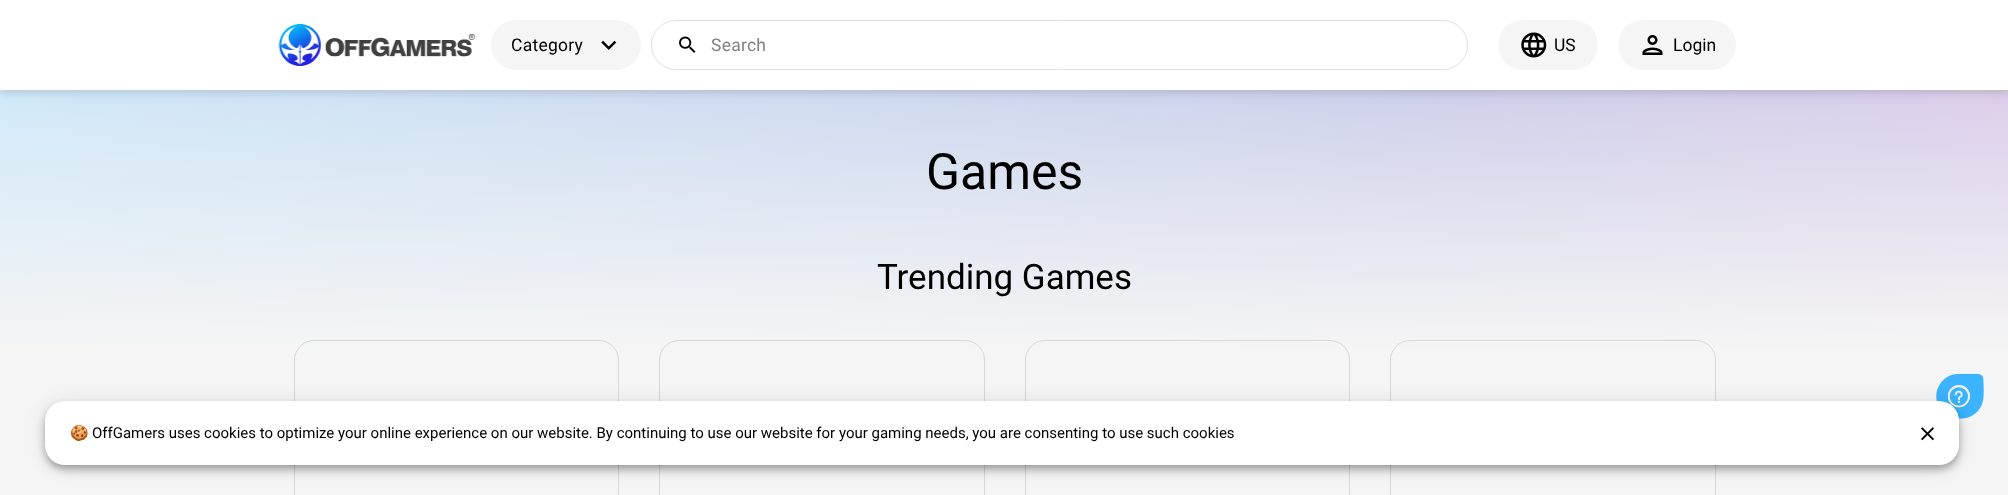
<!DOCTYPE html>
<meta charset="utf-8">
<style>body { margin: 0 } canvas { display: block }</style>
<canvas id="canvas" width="2008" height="495"></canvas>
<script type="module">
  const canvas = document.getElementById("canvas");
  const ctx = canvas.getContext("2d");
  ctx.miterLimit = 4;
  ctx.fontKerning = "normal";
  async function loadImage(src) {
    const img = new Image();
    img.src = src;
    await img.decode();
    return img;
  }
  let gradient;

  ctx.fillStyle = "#f5f5f5";
  ctx.fillRect(0, 0, 2008, 495);
  gradient = ctx.createLinearGradient(-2.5, 326, 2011, 114);
  gradient.addColorStop(0, "#d1e9f8");
  gradient.addColorStop(0.71, "#ced1ea");
  gradient.addColorStop(1, "#dcceea");
  gradient.addColorStop(1, "#ffffff");
  ctx.fillStyle = gradient;
  ctx.fillRect(0, 90, 2008, 258);
  gradient = ctx.createLinearGradient(1004, 90, 1004, 350);
  gradient.addColorStop(0, "rgba(245, 245, 245, 0)");
  gradient.addColorStop(1, "#f5f5f5");
  ctx.fillStyle = gradient;
  ctx.fillRect(0, 104, 2008, 244);
  ctx.fillStyle = "rgba(0, 0, 0, 0.09)";
  ctx.filter = "blur(4.5px)";
  ctx.beginPath();
  ctx.rect(0, 4, 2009, 90);
  ctx.fill();
  ctx.filter = "none";
  ctx.fillStyle = "rgba(0, 0, 0, 0.05)";
  ctx.filter = "blur(3px)";
  ctx.beginPath();
  ctx.rect(0, 0, 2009, 90);
  ctx.fill();
  ctx.filter = "none";
  ctx.fillStyle = "#ffffff";
  ctx.fillRect(0, 0, 2008, 90);
  ctx.drawImage(await loadImage("img1.png"), 278, 24, 197, 42);
  ctx.fillStyle = "#f5f5f5";
  ctx.beginPath();
  ctx.roundRect(491, 20, 150, 50, 25);
  ctx.fill();
  ctx.letterSpacing = "0.25px";
  ctx.font = "17.5px Roboto";
  ctx.fillStyle = "#000000";
  ctx.fillText("Category", 511, 51);
  ctx.drawImage(await loadImage("img2.png"), 601, 40, 16, 10);
  ctx.beginPath();
  ctx.roundRect(651.5, 20.5, 816, 49, 24.5);
  ctx.strokeStyle = "#e0e0e0";
  ctx.stroke();
  ctx.drawImage(await loadImage("img3.png"), 679, 36, 17, 17);
  ctx.fillStyle = "#808080";
  ctx.fillText("Search", 711, 51);
  ctx.fillStyle = "#f5f5f5";
  ctx.beginPath();
  ctx.roundRect(1498, 20, 100, 50, 25);
  ctx.fill();
  ctx.drawImage(await loadImage("img4.png"), 1521, 32, 26, 26);
  ctx.letterSpacing = "0px";
  ctx.fillStyle = "#000000";
  ctx.fillText("US", 1554, 51);
  ctx.fillStyle = "#f5f5f5";
  ctx.beginPath();
  ctx.roundRect(1618, 20, 118, 50, 25);
  ctx.fill();
  ctx.drawImage(await loadImage("img5.png"), 1642, 35, 21, 20);
  ctx.fillStyle = "#000000";
  ctx.fillText("Login", 1673, 51);
  ctx.font = "50px Roboto";
  ctx.fillText("Games", 926, 189);
  ctx.font = "35px Roboto";
  ctx.fillText("Trending Games", 877, 289);
  ctx.beginPath();
  ctx.roundRect(294.5, 340.5, 324, 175, 19.5);
  ctx.strokeStyle = "#d7d7d7";
  ctx.stroke();
  ctx.beginPath();
  ctx.roundRect(659.5, 340.5, 325, 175, 19.5);
  ctx.stroke();
  ctx.beginPath();
  ctx.roundRect(1025.5, 340.5, 324, 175, 19.5);
  ctx.stroke();
  ctx.beginPath();
  ctx.roundRect(1390.5, 340.5, 325, 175, 19.5);
  ctx.stroke();
  ctx.drawImage(await loadImage("img6.png"), 1936, 373, 48, 46);
  ctx.fillStyle = "rgba(0, 0, 0, 0.12)";
  ctx.filter = "blur(9px)";
  ctx.beginPath();
  ctx.roundRect(45, 403, 1914, 63, 20);
  ctx.fill();
  ctx.filter = "none";
  ctx.fillStyle = "rgba(0, 0, 0, 0.14)";
  ctx.filter = "blur(5px)";
  ctx.beginPath();
  ctx.roundRect(45, 408, 1914, 63, 20);
  ctx.fill();
  ctx.filter = "none";
  ctx.fillStyle = "rgba(0, 0, 0, 0.2)";
  ctx.filter = "blur(3px)";
  ctx.beginPath();
  ctx.roundRect(46, 406, 1912, 62, 19);
  ctx.fill();
  ctx.filter = "none";
  ctx.fillStyle = "#ffffff";
  ctx.beginPath();
  ctx.roundRect(45, 401, 1914, 64, 20);
  ctx.fill();
  ctx.font = "15px Noto Color Emoji";
  ctx.fillStyle = "#000000";
  ctx.fillText("🍪", 70, 438);
  ctx.font = "15px Roboto";
  ctx.fillText("OffGamers uses cookies to optimize your online experience on our website. By continuing to use our website for your gaming needs, you are consenting to use such cookies", 92, 438);
  ctx.drawImage(await loadImage("img7.png"), 1921, 427, 13, 14);
</script>
